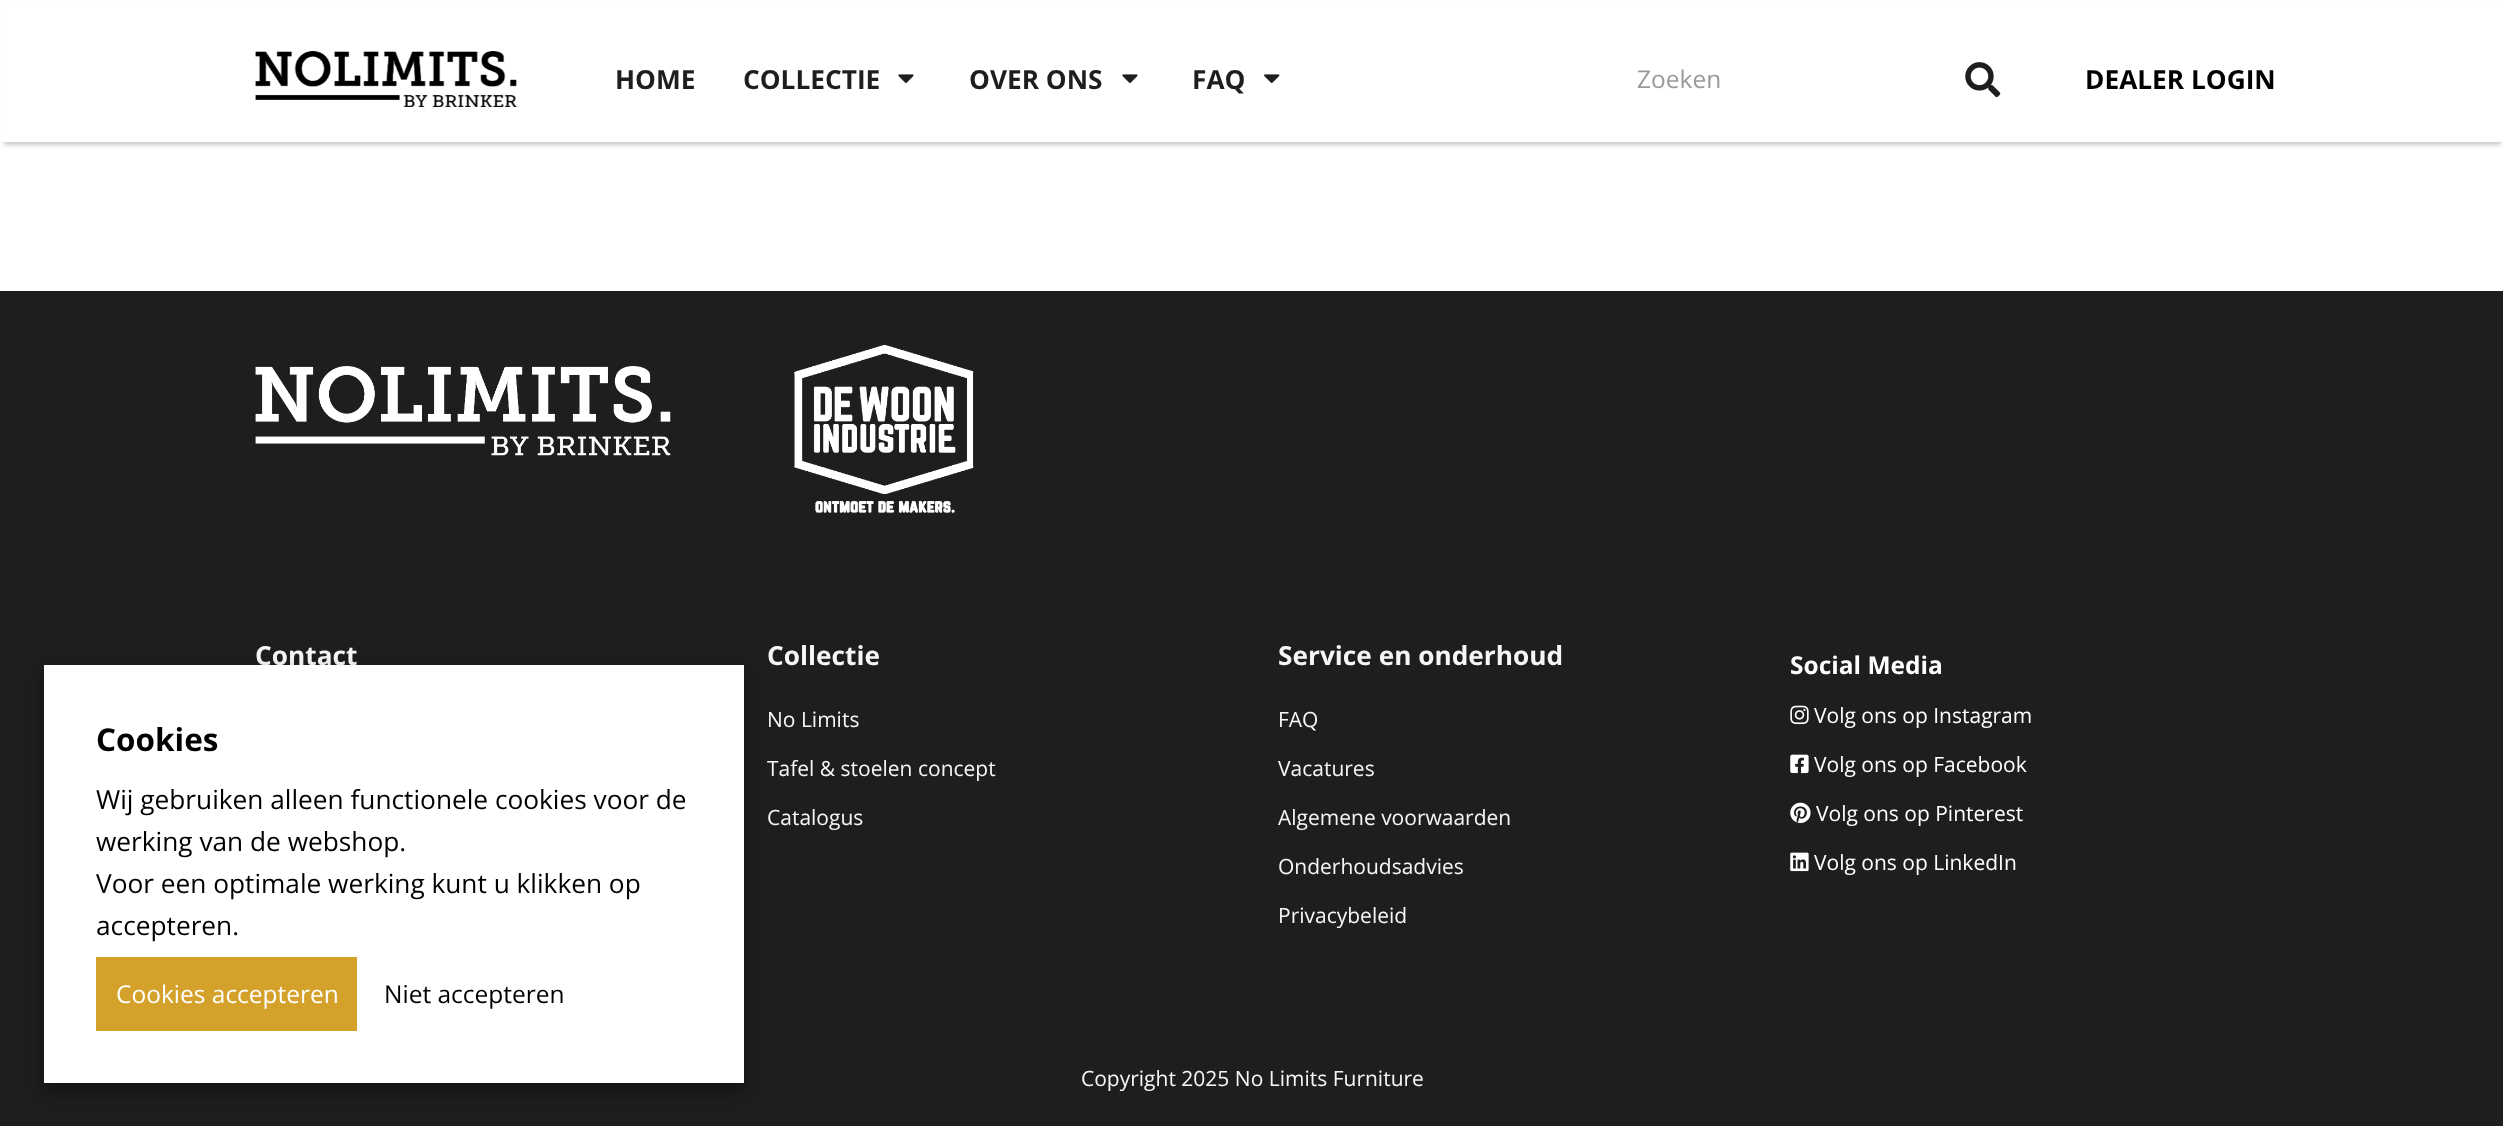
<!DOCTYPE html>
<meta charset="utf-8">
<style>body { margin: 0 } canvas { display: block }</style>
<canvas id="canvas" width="2503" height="1126"></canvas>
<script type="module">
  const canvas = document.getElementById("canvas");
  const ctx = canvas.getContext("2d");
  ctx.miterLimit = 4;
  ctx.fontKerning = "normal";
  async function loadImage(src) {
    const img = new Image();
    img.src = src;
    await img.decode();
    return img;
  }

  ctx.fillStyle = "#ffffff";
  ctx.fillRect(0, 0, 2503, 1126);
  ctx.fillStyle = "rgba(0, 0, 0, 0.21)";
  ctx.filter = "blur(2px)";
  ctx.beginPath();
  ctx.rect(4, 11, 2497, 134);
  ctx.fill();
  ctx.filter = "none";
  ctx.fillStyle = "#ffffff";
  ctx.fillRect(1, 8, 2502, 134);
  ctx.drawImage(await loadImage("img1.png"), 255, 51, 262, 56);
  ctx.font = "bold 26.25px Open Sans";
  ctx.fillStyle = "#1e1e1c";
  ctx.fillText("HOME", 615, 89);
  ctx.fillText("COLLECTIE", 743, 89);
  ctx.drawImage(await loadImage("img2.png"), 898, 74, 16, 9);
  ctx.fillText("OVER ONS", 969, 89);
  ctx.drawImage(await loadImage("img2.png"), 1122, 74, 16, 9);
  ctx.fillText("FAQ", 1192, 89);
  ctx.drawImage(await loadImage("img3.png"), 1264, 74, 16, 9);
  ctx.font = "24.5px Open Sans";
  ctx.fillStyle = "#999999";
  ctx.fillText("Zoeken", 1637, 88);
  ctx.drawImage(await loadImage("img4.png"), 1965, 62, 36, 36);
  ctx.font = "bold 26.25px Open Sans";
  ctx.fillStyle = "#000000";
  ctx.fillText("DEALER LOGIN", 2085, 89);
  ctx.fillStyle = "#1e1e1c";
  ctx.fillRect(0, 291, 2503, 835);
  ctx.drawImage(await loadImage("img5.png"), 255, 366, 416, 90);
  ctx.drawImage(await loadImage("img6.png"), 793, 344, 181, 170);
  ctx.fillStyle = "#f6f6f6";
  ctx.fillText("Contact", 255, 665);
  ctx.fillText("Collectie", 767, 665);
  ctx.font = "21px Open Sans";
  ctx.fillText("No Limits", 767, 727);
  ctx.fillText("Tafel & stoelen concept", 767, 776);
  ctx.fillText("Catalogus", 767, 825);
  ctx.font = "bold 26.25px Open Sans";
  ctx.fillText("Service en onderhoud", 1278, 665);
  ctx.font = "21px Open Sans";
  ctx.fillText("FAQ", 1278, 727);
  ctx.fillText("Vacatures", 1278, 776);
  ctx.fillText("Algemene voorwaarden", 1278, 825);
  ctx.fillText("Onderhoudsadvies", 1278, 874);
  ctx.fillText("Privacybeleid", 1278, 923);
  ctx.font = "bold 24.5px Open Sans";
  ctx.fillStyle = "#ffffff";
  ctx.fillText("Social Media", 1790, 674);
  ctx.drawImage(await loadImage("img7.png"), 1790, 705, 19, 20);
  ctx.font = "21px Open Sans";
  ctx.fillText("Volg ons op Instagram", 1814, 723);
  ctx.drawImage(await loadImage("img8.png"), 1790, 754, 19, 20);
  ctx.fillText("Volg ons op Facebook", 1814, 772);
  ctx.drawImage(await loadImage("img9.png"), 1790, 802, 21, 22);
  ctx.fillText("Volg ons op Pinterest", 1816, 821);
  ctx.drawImage(await loadImage("img10.png"), 1790, 852, 19, 20);
  ctx.fillText("Volg ons op LinkedIn", 1814, 870);
  ctx.fillStyle = "#f6f6f6";
  ctx.fillText("Copyright 2025 No Limits Furniture", 1081, 1086);
  ctx.fillStyle = "rgba(0, 0, 0, 0.4)";
  ctx.filter = "blur(9px)";
  ctx.beginPath();
  ctx.rect(44, 674, 700, 418);
  ctx.fill();
  ctx.filter = "none";
  ctx.fillStyle = "#ffffff";
  ctx.fillRect(44, 665, 700, 418);
  ctx.font = "bold 31.5px Open Sans";
  ctx.fillStyle = "#000000";
  ctx.fillText("Cookies", 96, 751);
  ctx.font = "26.25px Open Sans";
  ctx.fillText("Wij gebruiken alleen functionele cookies voor de", 96, 809);
  ctx.fillText("werking van de webshop.", 96, 851);
  ctx.fillText("Voor een optimale werking kunt u klikken op", 96, 893);
  ctx.fillText("accepteren.", 96, 935);
  ctx.fillStyle = "#d4a12a";
  ctx.fillRect(96, 957, 261, 74);
  ctx.font = "24.5px Open Sans";
  ctx.fillStyle = "#ffffff";
  ctx.fillText("Cookies accepteren", 116, 1003);
  ctx.fillStyle = "#000000";
  ctx.fillText("Niet accepteren", 384, 1003);
</script>
